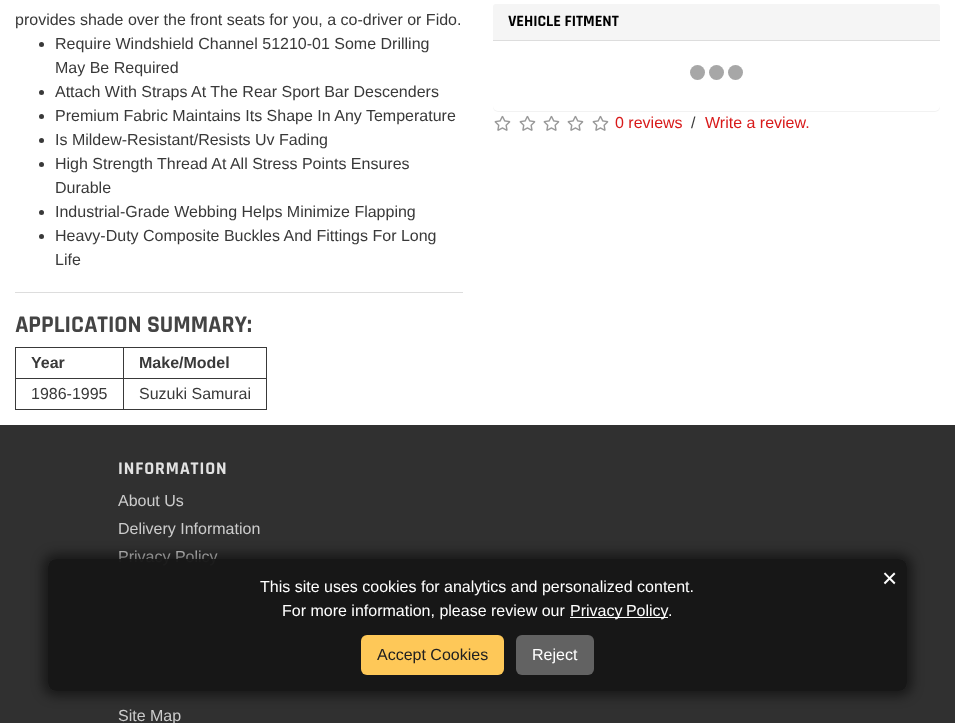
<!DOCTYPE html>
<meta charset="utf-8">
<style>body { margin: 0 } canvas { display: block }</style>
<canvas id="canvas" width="955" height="723"></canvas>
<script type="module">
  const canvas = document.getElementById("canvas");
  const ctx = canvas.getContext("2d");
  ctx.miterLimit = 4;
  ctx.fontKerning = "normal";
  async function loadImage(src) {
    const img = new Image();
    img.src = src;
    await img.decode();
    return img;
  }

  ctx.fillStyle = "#ffffff";
  ctx.fillRect(0, 0, 955, 723);
  ctx.font = "16px Arimo";
  ctx.fillStyle = "#393939";
  ctx.fillText("provides shade over the front seats for you, a co-driver or Fido.", 15, 25);
  ctx.beginPath();
  ctx.arc(41.5, 44.5, 2.5, 0, Math.PI * 2);
  ctx.fill();
  ctx.fillText("Require Windshield Channel 51210-01 Some Drilling", 55, 49);
  ctx.fillText("May Be Required", 55, 73);
  ctx.beginPath();
  ctx.arc(41.5, 92.5, 2.5, 0, Math.PI * 2);
  ctx.fill();
  ctx.fillText("Attach With Straps At The Rear Sport Bar Descenders", 55, 97);
  ctx.beginPath();
  ctx.arc(41.5, 116.5, 2.5, 0, Math.PI * 2);
  ctx.fill();
  ctx.fillText("Premium Fabric Maintains Its Shape In Any Temperature", 55, 121);
  ctx.beginPath();
  ctx.arc(41.5, 140.5, 2.5, 0, Math.PI * 2);
  ctx.fill();
  ctx.fillText("Is Mildew-Resistant/Resists Uv Fading", 55, 145);
  ctx.beginPath();
  ctx.arc(41.5, 164.5, 2.5, 0, Math.PI * 2);
  ctx.fill();
  ctx.fillText("High Strength Thread At All Stress Points Ensures", 55, 169);
  ctx.fillText("Durable", 55, 193);
  ctx.beginPath();
  ctx.arc(41.5, 212.5, 2.5, 0, Math.PI * 2);
  ctx.fill();
  ctx.fillText("Industrial-Grade Webbing Helps Minimize Flapping", 55, 217);
  ctx.beginPath();
  ctx.arc(41.5, 236.5, 2.5, 0, Math.PI * 2);
  ctx.fill();
  ctx.fillText("Heavy-Duty Composite Buckles And Fittings For Long", 55, 241);
  ctx.fillText("Life", 55, 265);
  ctx.fillStyle = "#dddddd";
  ctx.fillRect(15, 292, 448, 1);
  ctx.font = "bold 24px Rajdhani";
  ctx.fillStyle = "#444444";
  ctx.fillText("APPLICATION SUMMARY:", 15, 332);
  ctx.fillStyle = "#393939";
  ctx.fillRect(123, 347, 144, 1);
  ctx.fillRect(123, 378, 144, 1);
  ctx.fillRect(266, 378, 1, 32);
  ctx.fillRect(123, 409, 144, 1);
  ctx.fillRect(123, 378, 1, 32);
  ctx.fillRect(15, 378, 109, 1);
  ctx.fillRect(123, 347, 1, 32);
  ctx.fillRect(15, 347, 109, 1);
  ctx.fillRect(15, 409, 109, 1);
  ctx.fillRect(15, 378, 1, 32);
  ctx.fillRect(15, 347, 1, 32);
  ctx.font = "bold 16px Arimo";
  ctx.fillText("Year", 31, 368);
  ctx.fillRect(266, 347, 1, 32);
  ctx.fillText("Make/Model", 139, 368);
  ctx.font = "16px Arimo";
  ctx.fillText("1986-1995", 31, 399);
  ctx.fillText("Suzuki Samurai", 139, 399);
  ctx.fillStyle = "rgba(0, 0, 0, 0.05)";
  ctx.filter = "blur(0.5px)";
  ctx.beginPath();
  ctx.roundRect(493, 5, 447, 107, 5);
  ctx.fill();
  ctx.filter = "none";
  ctx.fillStyle = "#ffffff";
  ctx.beginPath();
  ctx.roundRect(493, 4, 447, 107, 5);
  ctx.fill();
  ctx.fillStyle = "#f5f5f5";
  ctx.beginPath();
  ctx.roundRect(493, 4, 447, 37, [3, 3, 0, 0]);
  ctx.fill();
  ctx.fillStyle = "#dddddd";
  ctx.fillRect(493, 40, 447, 1);
  ctx.font = "bold 16px Rajdhani";
  ctx.fillStyle = "#000000";
  ctx.fillText("VEHICLE FITMENT", 508, 26);
  ctx.fillStyle = "#a7a7a7";
  ctx.beginPath();
  ctx.arc(697.5, 72.5, 7.5, 0, Math.PI * 2);
  ctx.fill();
  ctx.beginPath();
  ctx.arc(716.5, 72.5, 7.5, 0, Math.PI * 2);
  ctx.fill();
  ctx.beginPath();
  ctx.arc(735.5, 72.5, 7.5, 0, Math.PI * 2);
  ctx.fill();
  ctx.drawImage(await loadImage("img1.png"), 494, 115, 17, 16);
  ctx.drawImage(await loadImage("img1.png"), 519, 115, 17, 16);
  ctx.drawImage(await loadImage("img1.png"), 543, 115, 17, 16);
  ctx.drawImage(await loadImage("img1.png"), 567, 115, 17, 16);
  ctx.drawImage(await loadImage("img1.png"), 592, 115, 17, 16);
  ctx.font = "16px Arimo";
  ctx.fillStyle = "#d81a1a";
  ctx.fillText("0 reviews", 615, 128);
  ctx.fillStyle = "#393939";
  ctx.fillText("/", 691, 128);
  ctx.fillStyle = "#d81a1a";
  ctx.fillText("Write a review.", 705, 128);
  ctx.fillStyle = "#303030";
  ctx.fillRect(0, 425, 955, 298);
  ctx.letterSpacing = "0.9px";
  ctx.font = "bold 18px Rajdhani";
  ctx.fillStyle = "#e2e2e2";
  ctx.fillText("INFORMATION", 118, 474);
  ctx.letterSpacing = "0px";
  ctx.font = "16px Arimo";
  ctx.fillStyle = "#cccccc";
  ctx.fillText("About Us", 118, 506);
  ctx.fillText("Delivery Information", 118, 534);
  ctx.fillText("Privacy Policy", 118, 562);
  ctx.fillText("Site Map", 118, 721);
  ctx.save();
  ctx.beginPath();
  ctx.moveTo(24, 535);
  ctx.lineTo(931, 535);
  ctx.lineTo(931, 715);
  ctx.lineTo(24, 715);
  ctx.closePath();
  ctx.moveTo(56, 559);
  ctx.lineTo(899, 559);
  ctx.bezierCurveTo(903.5, 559, 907, 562.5, 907, 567);
  ctx.lineTo(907, 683);
  ctx.bezierCurveTo(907, 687.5, 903.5, 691, 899, 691);
  ctx.lineTo(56, 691);
  ctx.bezierCurveTo(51.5, 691, 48, 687.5, 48, 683);
  ctx.lineTo(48, 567);
  ctx.bezierCurveTo(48, 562.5, 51.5, 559, 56, 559);
  ctx.closePath();
  ctx.clip("evenodd");
  ctx.fillStyle = "rgba(0, 0, 0, 0.5)";
  ctx.filter = "blur(6px)";
  ctx.beginPath();
  ctx.roundRect(43, 554, 869, 142, 13);
  ctx.fill();
  ctx.filter = "none";
  ctx.restore();
  ctx.fillStyle = "rgba(23, 23, 23, 0.97)";
  ctx.beginPath();
  ctx.roundRect(48, 559, 859, 132, 8);
  ctx.fill();
  ctx.font = "26px Arimo";
  ctx.fillStyle = "#ffffff";
  ctx.fillText("×", 882, 587);
  ctx.font = "16px Arimo";
  ctx.fillText("This site uses cookies for analytics and personalized content.", 260, 592);
  ctx.fillText("For more information, please review our", 282, 616);
  ctx.fillRect(570, 617, 98, 1);
  ctx.wordSpacing = "-1px";
  ctx.fillText("Privacy Policy", 570, 616);
  ctx.wordSpacing = "0px";
  ctx.fillText(".", 668, 616);
  ctx.fillStyle = "#fec858";
  ctx.beginPath();
  ctx.roundRect(361, 635, 143, 40, 6);
  ctx.fill();
  ctx.fillStyle = "#202020";
  ctx.fillText("Accept Cookies", 377, 660);
  ctx.fillStyle = "#626262";
  ctx.beginPath();
  ctx.roundRect(516, 635, 78, 40, 6);
  ctx.fill();
  ctx.fillStyle = "#ffffff";
  ctx.fillText("Reject", 532, 660);
</script>
